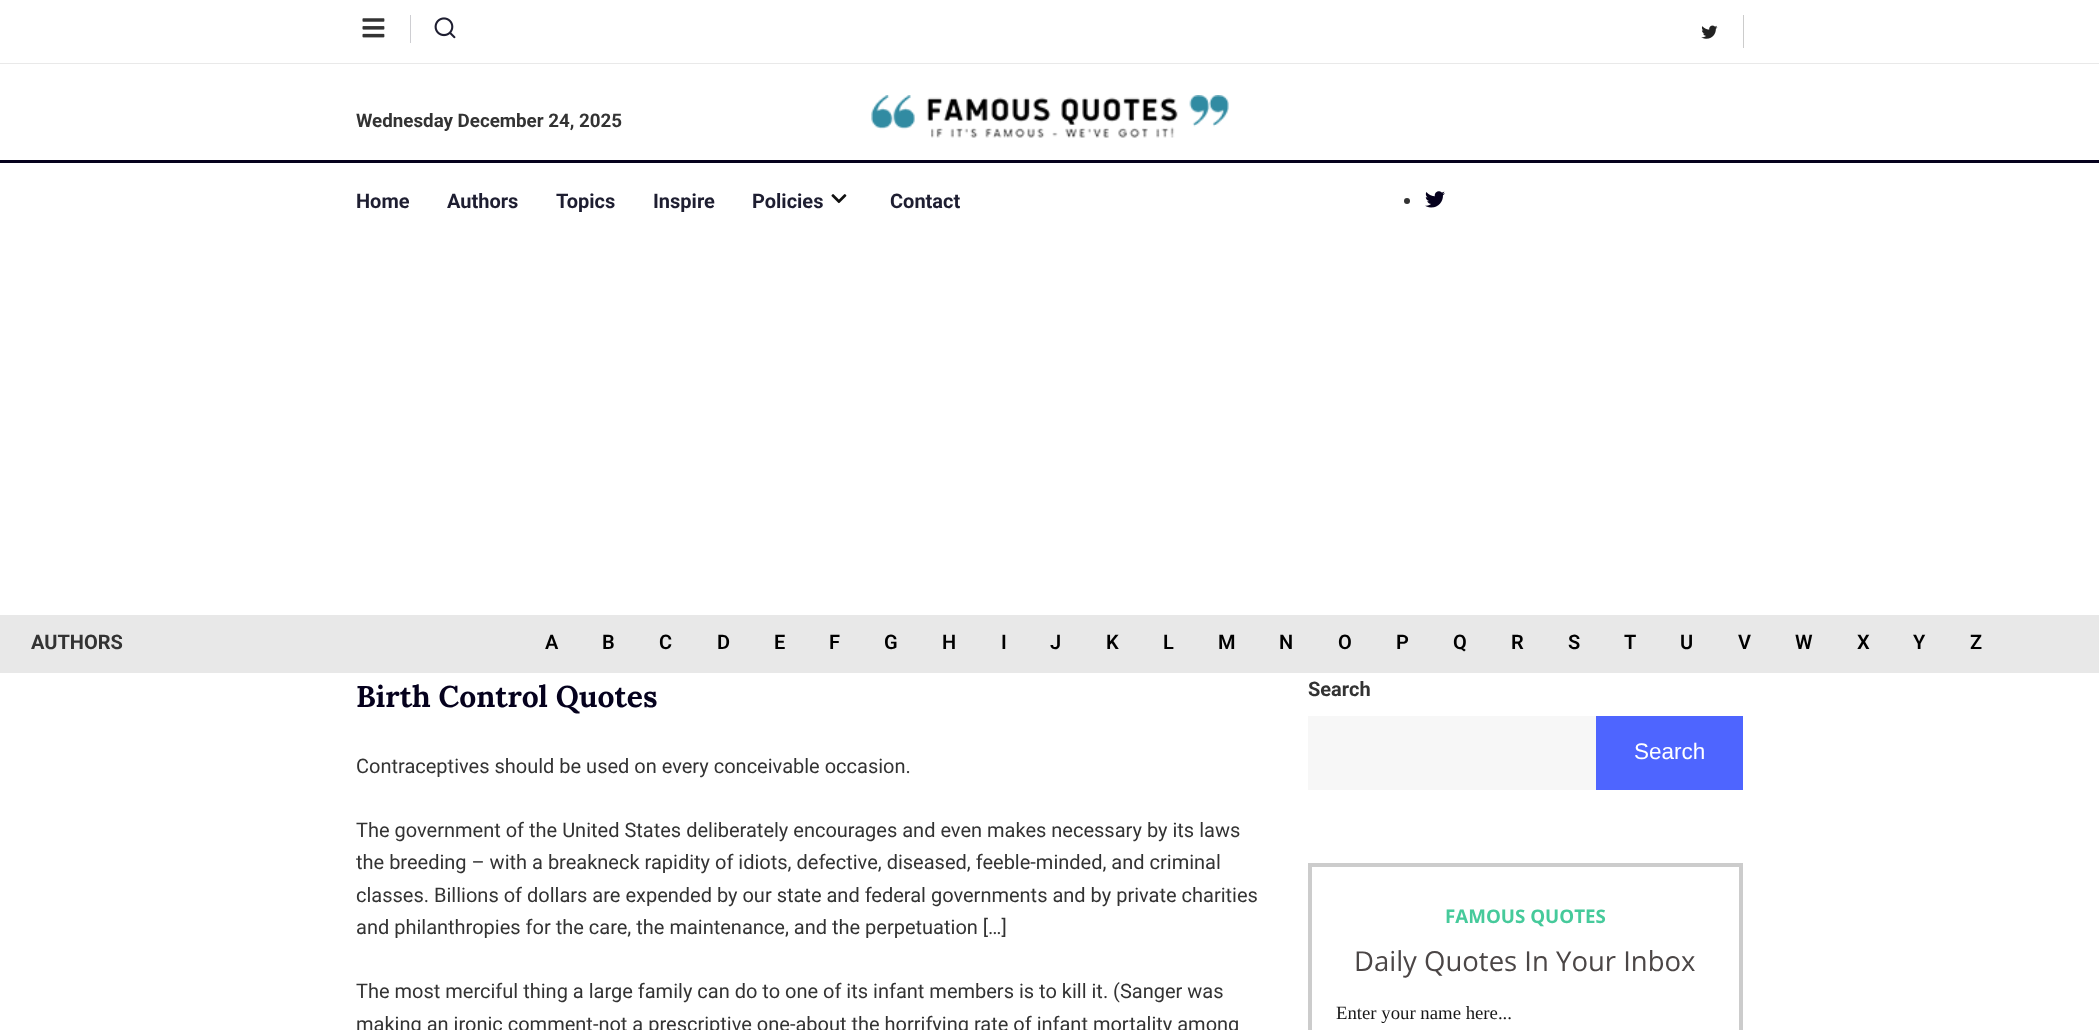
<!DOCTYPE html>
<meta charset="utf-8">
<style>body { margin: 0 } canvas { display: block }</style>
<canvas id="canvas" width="2099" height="1030"></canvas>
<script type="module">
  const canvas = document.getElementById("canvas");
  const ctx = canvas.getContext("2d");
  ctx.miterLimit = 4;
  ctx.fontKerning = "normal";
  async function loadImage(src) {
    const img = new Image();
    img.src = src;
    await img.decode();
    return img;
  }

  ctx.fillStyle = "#ffffff";
  ctx.fillRect(0, 0, 2099, 1030);
  ctx.fillStyle = "#e9e9e9";
  ctx.fillRect(0, 63, 2099, 1);
  ctx.fillStyle = "#ceced2";
  ctx.fillRect(410, 15, 1, 28);
  ctx.drawImage(await loadImage("img1.png"), 362, 18, 23, 20);
  ctx.drawImage(await loadImage("img2.png"), 434, 17, 22, 22);
  ctx.fillStyle = "#cccccc";
  ctx.fillRect(1743, 15, 1, 33);
  ctx.drawImage(await loadImage("img3.png"), 1701, 25, 17, 14);
  ctx.fillStyle = "#05011d";
  ctx.fillRect(0, 160, 2099, 3);
  ctx.font = "bold 18.75px Roboto";
  ctx.fillStyle = "#333333";
  ctx.fillText("Wednesday December 24, 2025", 356, 127);
  ctx.drawImage(await loadImage("img4.png"), 871, 95, 358, 43);
  ctx.font = "bold 20px Roboto";
  ctx.fillStyle = "#1e1e31";
  ctx.fillText("Home", 356, 208);
  ctx.fillText("Authors", 447, 208);
  ctx.fillText("Topics", 556, 208);
  ctx.fillText("Inspire", 653, 208);
  ctx.fillText("Policies", 752, 208);
  ctx.drawImage(await loadImage("img5.png"), 831, 194, 16, 10);
  ctx.fillText("Contact", 890, 208);
  ctx.fillStyle = "#333333";
  ctx.beginPath();
  ctx.arc(1407, 201, 3, 0, Math.PI * 2);
  ctx.fill();
  ctx.drawImage(await loadImage("img6.png"), 1425, 191, 20, 17);
  ctx.fillStyle = "#e8e8e8";
  ctx.fillRect(0, 615, 2099, 58);
  ctx.fillStyle = "#333333";
  ctx.fillText("AUTHORS", 31, 649);
  ctx.font = "600 20px Roboto";
  ctx.fillStyle = "#000000";
  ctx.fillText("A", 545, 649);
  ctx.fillText("B", 602, 649);
  ctx.fillText("C", 659, 649);
  ctx.fillText("D", 717, 649);
  ctx.fillText("E", 774, 649);
  ctx.fillText("F", 829, 649);
  ctx.fillText("G", 884, 649);
  ctx.fillText("H", 942, 649);
  ctx.fillText("I", 1001, 649);
  ctx.fillText("J", 1050, 649);
  ctx.fillText("K", 1106, 649);
  ctx.fillText("L", 1163, 649);
  ctx.fillText("M", 1218, 649);
  ctx.fillText("N", 1279, 649);
  ctx.fillText("O", 1338, 649);
  ctx.fillText("P", 1396, 649);
  ctx.fillText("Q", 1453, 649);
  ctx.fillText("R", 1511, 649);
  ctx.fillText("S", 1568, 649);
  ctx.fillText("T", 1624, 649);
  ctx.fillText("U", 1680, 649);
  ctx.fillText("V", 1738, 649);
  ctx.fillText("W", 1795, 649);
  ctx.fillText("X", 1857, 649);
  ctx.fillText("Y", 1913, 649);
  ctx.fillText("Z", 1970, 649);
  ctx.font = "bold 30px Lora";
  ctx.fillStyle = "#05011d";
  ctx.fillText("Birth Control Quotes", 356, 707);
  ctx.font = "20px Roboto";
  ctx.fillStyle = "#333333";
  ctx.fillText("Contraceptives should be used on every conceivable occasion.", 356, 773);
  ctx.fillText("The government of the United States deliberately encourages and even makes necessary by its laws", 356, 837);
  ctx.fillText("the breeding – with a breakneck rapidity of idiots, defective, diseased, feeble-minded, and criminal", 356, 869);
  ctx.fillText("classes. Billions of dollars are expended by our state and federal governments and by private charities", 356, 902);
  ctx.fillText("and philanthropies for the care, the maintenance, and the perpetuation […]", 356, 934);
  ctx.fillText("The most merciful thing a large family can do to one of its infant members is to kill it. (Sanger was", 356, 998);
  ctx.fillText("making an ironic comment-not a prescriptive one-about the horrifying rate of infant mortality among", 356, 1031);
  ctx.font = "bold 20px Roboto";
  ctx.fillText("Search", 1308, 696);
  ctx.fillStyle = "#f7f7f7";
  ctx.fillRect(1308, 716, 288, 74);
  ctx.fillStyle = "#4e65ff";
  ctx.fillRect(1596, 716, 147, 74);
  ctx.font = "22.5px Liberation Sans";
  ctx.fillStyle = "#ffffff";
  ctx.fillText("Search", 1634, 759);
  ctx.strokeStyle = "#cccccc";
  ctx.lineWidth = 4;
  ctx.strokeRect(1310, 865, 431, 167);
  ctx.font = "bold 18.75px Open Sans";
  ctx.fillStyle = "#46ca9b";
  ctx.fillText("FAMOUS QUOTES", 1445, 923);
  ctx.font = "27.5px Open Sans";
  ctx.fillStyle = "#4b4646";
  ctx.fillText("Daily Quotes In Your Inbox", 1354, 971);
  ctx.font = "18.75px Liberation Serif";
  ctx.fillStyle = "#181818";
  ctx.fillText("Enter your name here...", 1336, 1019);
</script>
